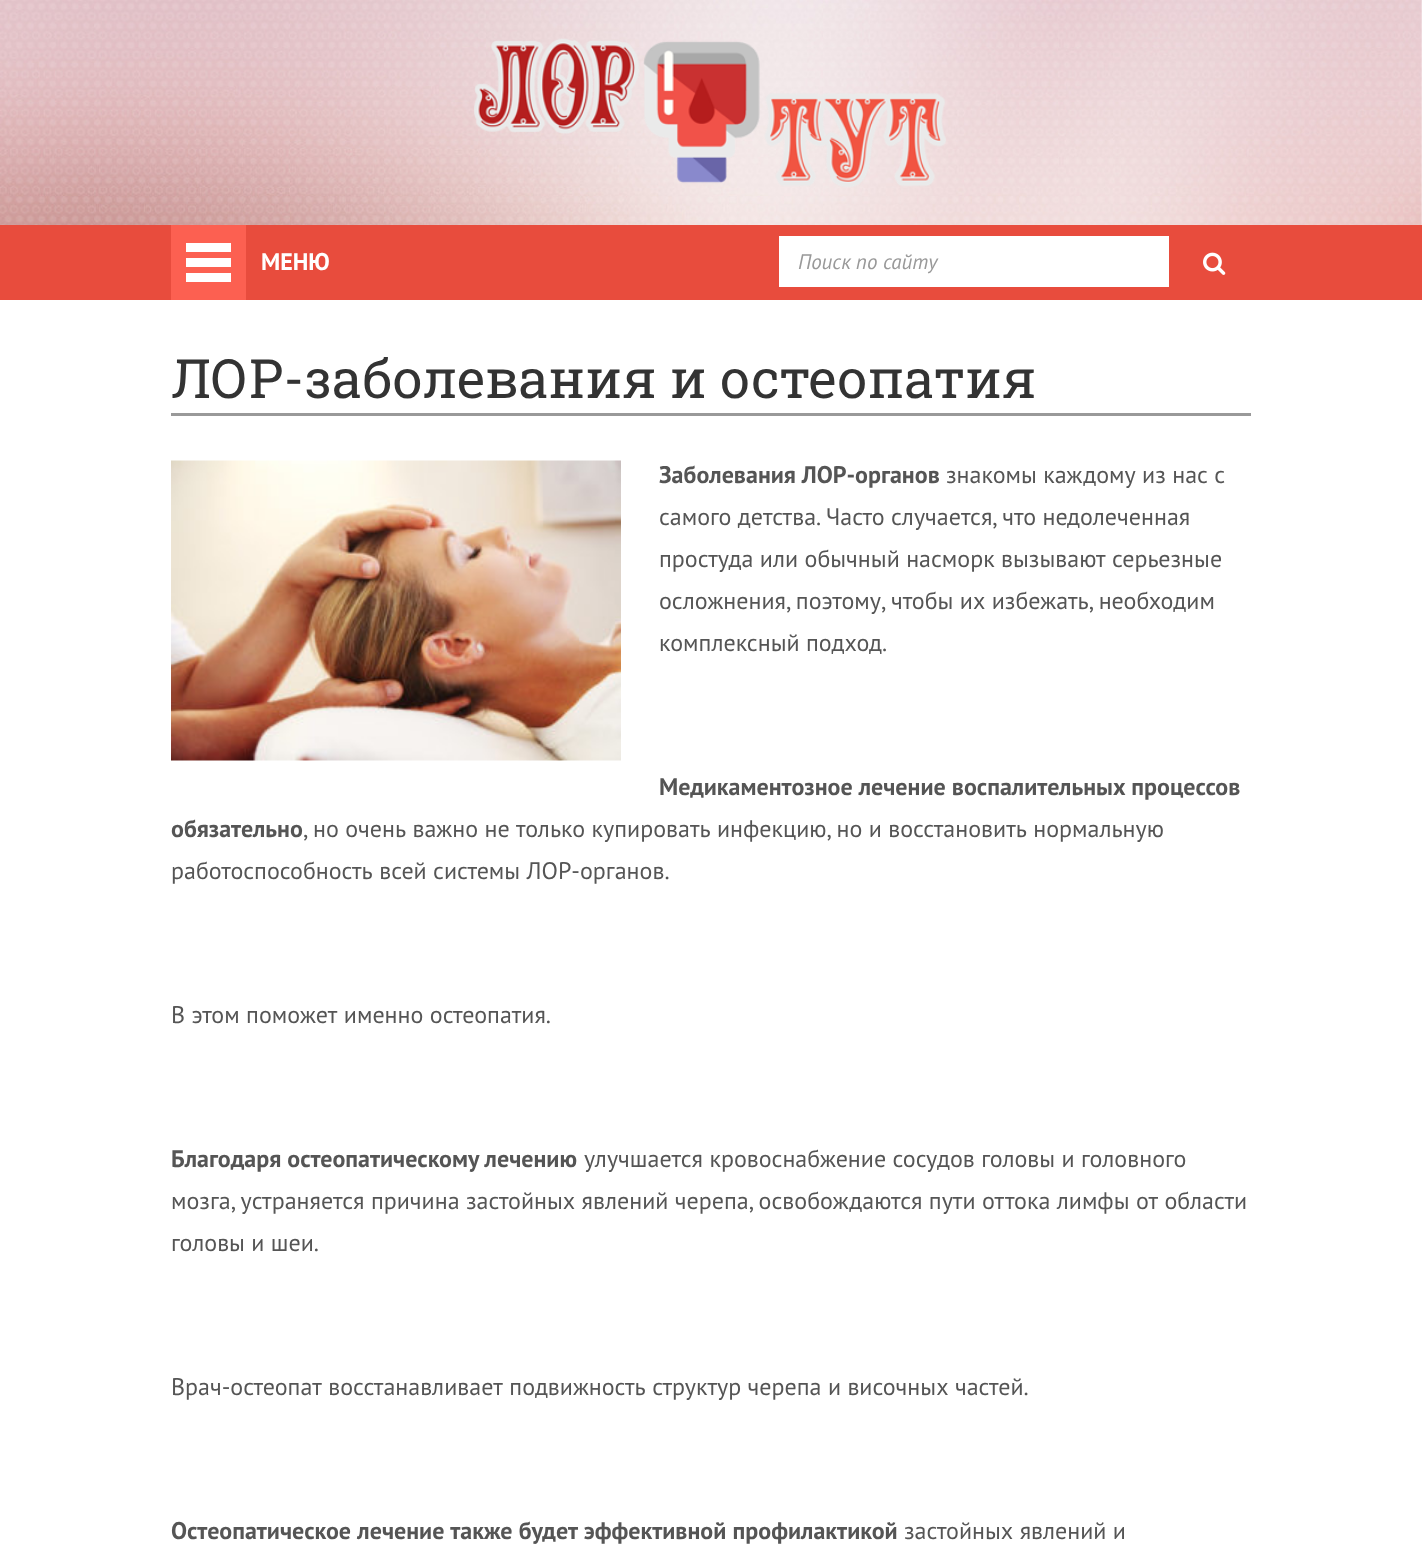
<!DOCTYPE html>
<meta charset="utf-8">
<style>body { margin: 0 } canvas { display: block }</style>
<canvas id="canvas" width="1422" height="1567"></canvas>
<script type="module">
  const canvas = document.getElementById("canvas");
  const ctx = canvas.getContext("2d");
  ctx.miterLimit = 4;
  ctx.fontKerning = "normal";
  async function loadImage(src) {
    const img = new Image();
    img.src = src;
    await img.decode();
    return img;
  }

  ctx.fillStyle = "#ffffff";
  ctx.fillRect(0, 0, 1422, 1567);
  ctx.drawImage(await loadImage("img1.png"), 0, 0, 1422, 225);
  ctx.drawImage(await loadImage("img2.png"), 474, 38, 472, 150);
  ctx.fillStyle = "#e84c3d";
  ctx.fillRect(0, 225, 1422, 75);
  ctx.fillStyle = "#fc6051";
  ctx.fillRect(171, 225, 75, 75);
  ctx.fillStyle = "#ffffff";
  ctx.fillRect(186, 243, 45, 9);
  ctx.fillRect(186, 258, 45, 9);
  ctx.fillRect(186, 273, 45, 9);
  ctx.font = "bold 24px PT Sans";
  ctx.fillText("МЕНЮ", 261, 270);
  ctx.fillRect(779, 236, 390, 51);
  ctx.font = "italic 21px PT Sans";
  ctx.fillStyle = "#999999";
  ctx.fillText("Поиск по сайту", 798, 269);
  ctx.drawImage(await loadImage("img3.png"), 1203, 252, 23, 23);
  ctx.fillRect(171, 413, 1080, 3);
  ctx.font = "54px Roboto Slab";
  ctx.fillStyle = "#333333";
  ctx.fillText("ЛОР-заболевания и остеопатия", 171, 398);
  ctx.drawImage(await loadImage("img4.png"), 171, 460, 450, 301);
  ctx.font = "bold 24px PT Sans";
  ctx.fillStyle = "#555555";
  ctx.fillText("Заболевания ЛОР-органов", 659, 483);
  ctx.font = "24px PT Sans";
  ctx.fillText("знакомы каждому из нас с", 946, 483);
  ctx.fillText("самого детства. Часто случается, что недолеченная", 659, 525);
  ctx.fillText("простуда или обычный насморк вызывают серьезные", 659, 567);
  ctx.fillText("осложнения, поэтому, чтобы их избежать, необходим", 659, 609);
  ctx.fillText("комплексный подход.", 659, 651);
  ctx.font = "bold 24px PT Sans";
  ctx.fillText("Медикаментозное лечение воспалительных процессов", 659, 795);
  ctx.fillText("обязательно", 171, 837);
  ctx.font = "24px PT Sans";
  ctx.fillText(", но очень важно не только купировать инфекцию, но и восстановить нормальную", 303, 837);
  ctx.fillText("работоспособность всей системы ЛОР-органов.", 171, 879);
  ctx.fillText("В этом поможет именно остеопатия.", 171, 1023);
  ctx.font = "bold 24px PT Sans";
  ctx.fillText("Благодаря остеопатическому лечению", 171, 1167);
  ctx.font = "24px PT Sans";
  ctx.fillText("улучшается кровоснабжение сосудов головы и головного", 584, 1167);
  ctx.fillText("мозга, устраняется причина застойных явлений черепа, освобождаются пути оттока лимфы от области", 171, 1209);
  ctx.fillText("головы и шеи.", 171, 1251);
  ctx.fillText("Врач-остеопат восстанавливает подвижность структур черепа и височных частей.", 171, 1395);
  ctx.wordSpacing = "0.25px";
  ctx.font = "bold 24px PT Sans";
  ctx.fillText("Остеопатическое лечение также будет эффективной профилактикой", 171, 1539);
  ctx.wordSpacing = "0px";
  ctx.font = "24px PT Sans";
  ctx.fillText("застойных явлений и", 904, 1539);
</script>
